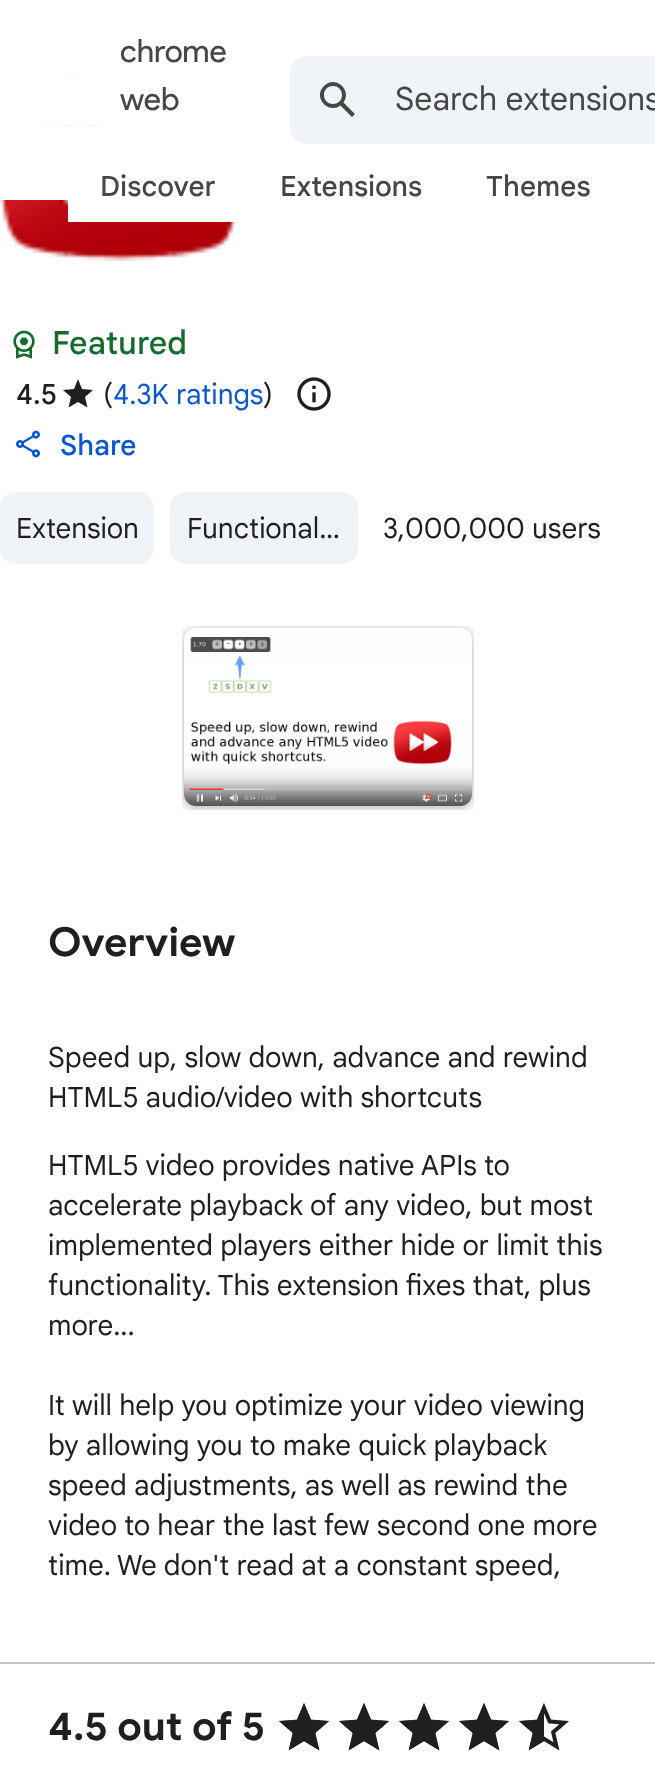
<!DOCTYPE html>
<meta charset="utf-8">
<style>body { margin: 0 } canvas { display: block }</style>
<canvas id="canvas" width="655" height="1766"></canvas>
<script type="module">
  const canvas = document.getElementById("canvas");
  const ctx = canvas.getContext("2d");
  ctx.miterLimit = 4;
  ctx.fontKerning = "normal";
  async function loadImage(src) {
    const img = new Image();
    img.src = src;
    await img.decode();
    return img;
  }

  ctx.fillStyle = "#ffffff";
  ctx.fillRect(0, 0, 655, 1766);
  ctx.drawImage(await loadImage("img1.png"), 43, 79, 58, 47);
  ctx.font = "32px Product Sans";
  ctx.fillStyle = "#444746";
  ctx.fillText("chrome", 120, 62);
  ctx.fillText("web", 120, 110);
  ctx.fillStyle = "#f0f4f9";
  ctx.beginPath();
  ctx.roundRect(290, 56, 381, 88, 16);
  ctx.fill();
  ctx.fillStyle = "#444746";
  ctx.beginPath();
  ctx.moveTo(355, 114);
  ctx.lineTo(343.5, 102.5);
  ctx.bezierCurveTo(352.5, 90, 335, 74.5, 324, 86);
  ctx.bezierCurveTo(312.5, 97, 328, 114.5, 340.5, 105.5);
  ctx.lineTo(352, 117);
  ctx.closePath();
  ctx.moveTo(324, 95);
  ctx.bezierCurveTo(324, 83, 342, 83, 342, 95);
  ctx.bezierCurveTo(342, 107, 324, 107, 324, 95);
  ctx.closePath();
  ctx.fill();
  ctx.font = "32px Google Sans";
  ctx.fillText("Search extensions", 395, 110);
  ctx.drawImage(await loadImage("img2.png"), 0, 200, 238, 62);
  ctx.fillStyle = "#ffffff";
  ctx.fillRect(68, 200, 170, 22);
  ctx.font = "500 28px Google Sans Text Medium";
  ctx.fillStyle = "#444746";
  ctx.fillText("Discover", 100, 196);
  ctx.fillText("Extensions", 280, 196);
  ctx.fillText("Themes", 486, 196);
  ctx.drawImage(await loadImage("img3.png"), 13, 330, 22, 29);
  ctx.font = "500 32px Google Sans";
  ctx.fillStyle = "#146c2e";
  ctx.fillText("Featured", 52, 354);
  ctx.font = "500 28px Google Sans";
  ctx.fillStyle = "#1f1f1f";
  ctx.fillText("4.5", 16, 404);
  ctx.beginPath();
  ctx.moveTo(78, 402);
  ctx.lineTo(87.5, 407.5);
  ctx.lineTo(85, 397);
  ctx.lineTo(93, 390);
  ctx.lineTo(82, 389);
  ctx.lineTo(78, 379);
  ctx.lineTo(74, 389);
  ctx.lineTo(63, 390);
  ctx.lineTo(71, 397);
  ctx.lineTo(68.5, 407.5);
  ctx.closePath();
  ctx.fill();
  ctx.font = "28px Google Sans";
  ctx.fillText("(", 103, 404);
  ctx.fillStyle = "#0b57d0";
  ctx.fillText("4.3K ratings", 113, 404);
  ctx.fillStyle = "#1f1f1f";
  ctx.fillText(")", 263, 404);
  ctx.drawImage(await loadImage("img4.png"), 297, 377, 34, 34);
  ctx.drawImage(await loadImage("img5.png"), 16, 430, 24, 28);
  ctx.font = "500 28px Google Sans Text Medium";
  ctx.fillStyle = "#0b57d0";
  ctx.fillText("Share", 60, 455);
  ctx.fillStyle = "#f0f4f9";
  ctx.beginPath();
  ctx.roundRect(0, 492, 154, 72, 16);
  ctx.fill();
  ctx.font = "28px Google Sans";
  ctx.fillStyle = "#1f1f1f";
  ctx.fillText("Extension", 16, 538);
  ctx.fillStyle = "#f0f4f9";
  ctx.beginPath();
  ctx.roundRect(170, 492, 188, 72, 16);
  ctx.fill();
  ctx.fillStyle = "#1f1f1f";
  ctx.fillText("Functional…", 187, 538);
  ctx.fillText("3,000,000 users", 383, 538);
  ctx.drawImage(await loadImage("img6.png"), 182, 626, 292, 184);
  ctx.fillStyle = "#c4c7c5";
  ctx.fillRect(0, 1662, 655, 2);
  ctx.font = "bold 40px Google Sans";
  ctx.fillStyle = "#1f1f1f";
  ctx.fillText("Overview", 48, 956);
  ctx.font = "28px Google Sans";
  ctx.fillText("Speed up, slow down, advance and rewind", 48, 1067);
  ctx.fillText("HTML5 audio/video with shortcuts", 48, 1107);
  ctx.fillText("HTML5 video provides native APIs to", 48, 1175);
  ctx.fillText("accelerate playback of any video, but most", 48, 1215);
  ctx.fillText("implemented players either hide or limit this", 48, 1255);
  ctx.fillText("functionality. This extension fixes that, plus", 48, 1295);
  ctx.fillText("more...", 48, 1335);
  ctx.fillText("It will help you optimize your video viewing", 48, 1415);
  ctx.fillText("by allowing you to make quick playback", 48, 1455);
  ctx.fillText("speed adjustments, as well as rewind the", 48, 1495);
  ctx.fillText("video to hear the last few second one more", 48, 1535);
  ctx.fillText("time. We don't read at a constant speed,", 48, 1575);
  ctx.font = "bold 40px Google Sans";
  ctx.fillText("4.5 out of 5", 48, 1740);
  ctx.drawImage(await loadImage("img7.png"), 279, 1703, 50, 48);
  ctx.drawImage(await loadImage("img7.png"), 339, 1703, 50, 48);
  ctx.drawImage(await loadImage("img7.png"), 399, 1703, 50, 48);
  ctx.drawImage(await loadImage("img7.png"), 459, 1703, 50, 48);
  ctx.drawImage(await loadImage("img7.png"), 519, 1703, 50, 48);
  ctx.beginPath();
  ctx.moveTo(304, 1741);
  ctx.lineTo(319, 1750);
  ctx.lineTo(315, 1733);
  ctx.lineTo(329, 1721);
  ctx.lineTo(311, 1720);
  ctx.lineTo(304, 1703);
  ctx.lineTo(297, 1720);
  ctx.lineTo(279, 1721);
  ctx.lineTo(293, 1733);
  ctx.lineTo(289, 1750);
  ctx.closePath();
  ctx.fill();
  ctx.beginPath();
  ctx.moveTo(364, 1741);
  ctx.lineTo(379, 1750);
  ctx.lineTo(375, 1733);
  ctx.lineTo(389, 1721);
  ctx.lineTo(371, 1720);
  ctx.lineTo(364, 1703);
  ctx.lineTo(357, 1720);
  ctx.lineTo(339, 1721);
  ctx.lineTo(353, 1733);
  ctx.lineTo(349, 1750);
  ctx.closePath();
  ctx.fill();
  ctx.beginPath();
  ctx.moveTo(424, 1741);
  ctx.lineTo(439, 1750);
  ctx.lineTo(435, 1733);
  ctx.lineTo(449, 1721);
  ctx.lineTo(431, 1720);
  ctx.lineTo(424, 1703);
  ctx.lineTo(417, 1720);
  ctx.lineTo(399, 1721);
  ctx.lineTo(413, 1733);
  ctx.lineTo(409, 1750);
  ctx.closePath();
  ctx.fill();
  ctx.beginPath();
  ctx.moveTo(484, 1741);
  ctx.lineTo(499, 1750);
  ctx.lineTo(495, 1733);
  ctx.lineTo(509, 1721);
  ctx.lineTo(491, 1720);
  ctx.lineTo(484, 1703);
  ctx.lineTo(477, 1720);
  ctx.lineTo(459, 1721);
  ctx.lineTo(473, 1733);
  ctx.lineTo(469, 1750);
  ctx.closePath();
  ctx.fill();
  ctx.save();
  ctx.beginPath();
  ctx.rect(514, 1698, 30, 60);
  ctx.clip();
  ctx.beginPath();
  ctx.moveTo(544, 1741);
  ctx.lineTo(559, 1750);
  ctx.lineTo(555, 1733);
  ctx.lineTo(569, 1721);
  ctx.lineTo(551, 1720);
  ctx.lineTo(544, 1703);
  ctx.lineTo(537, 1720);
  ctx.lineTo(519, 1721);
  ctx.lineTo(533, 1733);
  ctx.lineTo(529, 1750);
  ctx.closePath();
  ctx.fill();
  ctx.restore();
</script>
